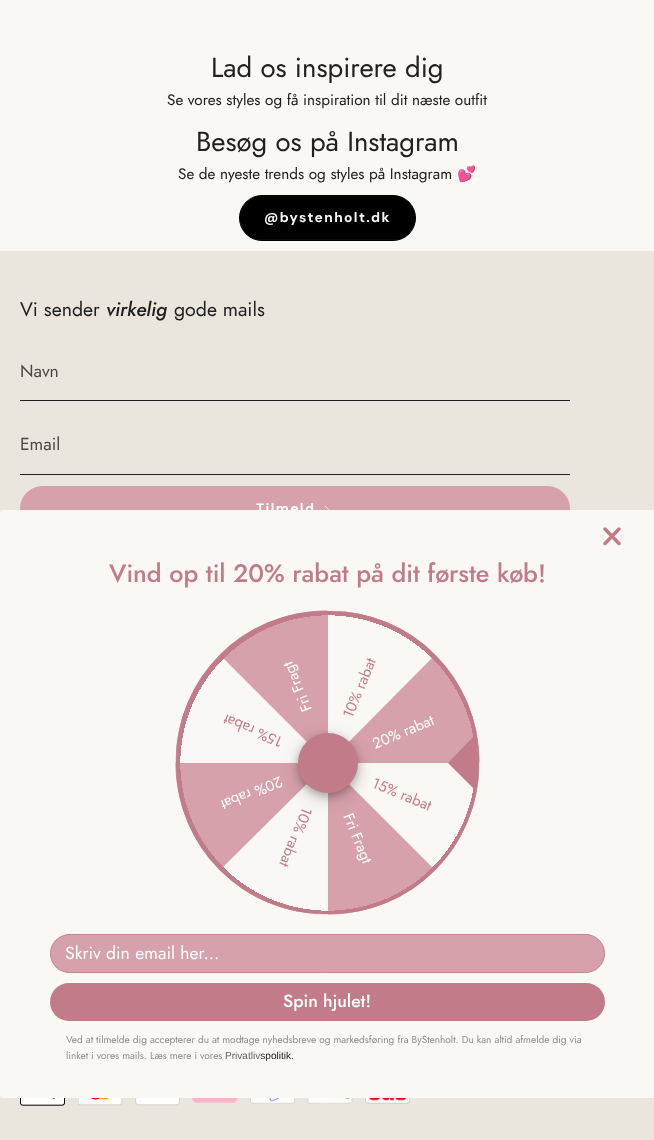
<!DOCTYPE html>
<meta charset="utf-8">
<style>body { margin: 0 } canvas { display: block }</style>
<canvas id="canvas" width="654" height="1140"></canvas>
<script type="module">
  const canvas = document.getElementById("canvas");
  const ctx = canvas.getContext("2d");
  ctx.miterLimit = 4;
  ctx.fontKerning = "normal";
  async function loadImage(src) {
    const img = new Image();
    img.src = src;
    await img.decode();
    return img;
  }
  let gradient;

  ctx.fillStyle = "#faf8f5";
  ctx.fillRect(0, 0, 654, 1140);
  ctx.font = "27.5px Jost";
  ctx.fillStyle = "#212121";
  ctx.fillText("Lad os inspirere dig", 211, 77);
  ctx.font = "15.3px Jost";
  ctx.fillText("Se vores styles og få inspiration til dit næste outfit", 167, 105);
  ctx.font = "27.5px Jost";
  ctx.fillText("Besøg os på Instagram", 196, 151);
  ctx.font = "15.3px Jost";
  ctx.fillText("Se de nyeste trends og styles på Instagram", 178, 179);
  ctx.font = "15.3px Noto Color Emoji";
  ctx.fillText("💕", 457, 179);
  ctx.fillStyle = "#000000";
  ctx.beginPath();
  ctx.roundRect(239.5, 195.5, 176, 45, 22.5);
  ctx.fill();
  ctx.strokeStyle = "#000000";
  ctx.stroke();
  ctx.letterSpacing = "1.4px";
  ctx.font = "bold 13.75px DM Sans";
  ctx.fillStyle = "#faf8f5";
  ctx.fillText("@bystenholt.dk", 264, 222);
  ctx.save();
  ctx.beginPath();
  ctx.roundRect(240, 196, 175, 44, 22);
  ctx.clip();
  ctx.fillStyle = "#0d0d0d";
  ctx.fillRect(255, 239, 145, 1);
  ctx.restore();
  ctx.fillStyle = "#eae6dd";
  ctx.fillRect(0, 251, 654, 262);
  ctx.letterSpacing = "0px";
  ctx.font = "19.5px Jost";
  ctx.fillStyle = "#212121";
  ctx.fillText("Vi sender", 20, 316);
  ctx.font = "italic 500 19.5px Jost";
  ctx.fillText("virkelig", 106, 316);
  ctx.font = "19.5px Jost";
  ctx.fillText("gode mails", 174, 316);
  ctx.fillRect(20, 400, 550, 1);
  ctx.font = "17.5px Jost";
  ctx.fillStyle = "#494847";
  ctx.fillText("Navn", 20, 377);
  ctx.fillStyle = "#212121";
  ctx.fillRect(20, 474, 550, 1);
  ctx.fillStyle = "#494847";
  ctx.fillText("Email", 20, 450);
  ctx.fillStyle = "#d7a1ab";
  ctx.beginPath();
  ctx.roundRect(20.5, 486.5, 549, 44, 22);
  ctx.fill();
  ctx.strokeStyle = "#d7a1ab";
  ctx.stroke();
  ctx.letterSpacing = "1.4px";
  ctx.font = "bold 13.75px DM Sans";
  ctx.fillStyle = "#ffffff";
  ctx.fillText("Tilmeld", 256, 513);
  ctx.beginPath();
  ctx.moveTo(325, 506);
  ctx.lineTo(328.5, 509.5);
  ctx.lineTo(325, 513);
  ctx.strokeStyle = "#ffffff";
  ctx.lineWidth = 0.6;
  ctx.lineCap = "round";
  ctx.lineJoin = "round";
  ctx.stroke();
  ctx.fillStyle = "#eae6dd";
  ctx.fillRect(0, 1095, 654, 45);
  ctx.drawImage(await loadImage("img1.png"), 20, 1098, 45, 8);
  ctx.drawImage(await loadImage("img2.png"), 78, 1098, 45, 8);
  ctx.drawImage(await loadImage("img3.png"), 135, 1098, 45, 8);
  ctx.drawImage(await loadImage("img4.png"), 192, 1098, 46, 5);
  ctx.drawImage(await loadImage("img5.png"), 250, 1098, 45, 6);
  ctx.drawImage(await loadImage("img6.png"), 307, 1098, 46, 6);
  ctx.drawImage(await loadImage("img7.png"), 365, 1098, 45, 6);
  ctx.fillStyle = "#faf8f5";
  ctx.beginPath();
  ctx.roundRect(0, 510, 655, 588, 3);
  ctx.fill();
  ctx.beginPath();
  ctx.moveTo(605, 529);
  ctx.lineTo(619, 543.5);
  ctx.moveTo(605, 543.5);
  ctx.lineTo(619, 529);
  ctx.closePath();
  ctx.strokeStyle = "#c27b88";
  ctx.lineWidth = 3.5;
  ctx.stroke();
  ctx.letterSpacing = "0px";
  ctx.font = "500 25.2px Jost";
  ctx.fillStyle = "#c27b88";
  ctx.fillText("Vind op til 20% rabat på dit første køb!", 109, 582);
  ctx.font = "15px Jost";
  ctx.save();
  ctx.translate(352, 719);
  ctx.rotate(-67.5 * Math.PI / 180);
  ctx.fillText("10% rabat", 0, 0);
  ctx.restore();
  ctx.fillStyle = "#d7a1ab";
  ctx.beginPath();
  ctx.moveTo(328, 763);
  ctx.lineTo(435, 655);
  ctx.bezierCurveTo(463, 683, 479, 722, 479, 763);
  ctx.closePath();
  ctx.fill();
  ctx.save();
  ctx.beginPath();
  ctx.moveTo(327.5, 762.5);
  ctx.lineTo(435, 655);
  ctx.lineTo(542.5, 762.5);
  ctx.lineTo(479.5, 762.5);
  ctx.closePath();
  ctx.clip();
  ctx.beginPath();
  ctx.moveTo(434.5, 655.5);
  ctx.bezierCurveTo(494, 714.5, 494, 810.5, 434.5, 869.5);
  ctx.bezierCurveTo(375.5, 929, 279.5, 929, 220.5, 869.5);
  ctx.bezierCurveTo(161, 810.5, 161, 714.5, 220.5, 655.5);
  ctx.bezierCurveTo(279.5, 596, 375.5, 596, 434.5, 655.5);
  ctx.closePath();
  ctx.lineWidth = 0.8;
  ctx.lineCap = "butt";
  ctx.lineJoin = "miter";
  ctx.stroke();
  ctx.restore();
  ctx.save();
  ctx.beginPath();
  ctx.moveTo(327.5, 762.5);
  ctx.lineTo(479.5, 762.5);
  ctx.lineTo(479.5, 914.5);
  ctx.lineTo(435, 870);
  ctx.closePath();
  ctx.clip();
  ctx.beginPath();
  ctx.moveTo(479, 762.5);
  ctx.bezierCurveTo(479, 846, 411, 914, 327.5, 914);
  ctx.bezierCurveTo(244, 914, 176, 846, 176, 762.5);
  ctx.bezierCurveTo(176, 679, 244, 611, 327.5, 611);
  ctx.bezierCurveTo(411, 611, 479, 679, 479, 762.5);
  ctx.closePath();
  ctx.lineWidth = 0.8;
  ctx.lineCap = "butt";
  ctx.lineJoin = "miter";
  ctx.stroke();
  ctx.restore();
  ctx.fillStyle = "#c27b88";
  ctx.save();
  ctx.translate(371, 787);
  ctx.rotate(22.5 * Math.PI / 180);
  ctx.fillText("15% rabat", 0, 0);
  ctx.restore();
  ctx.fillStyle = "#d7a1ab";
  ctx.beginPath();
  ctx.moveTo(328, 763);
  ctx.lineTo(435, 870);
  ctx.bezierCurveTo(407, 898, 368, 914, 328, 914);
  ctx.closePath();
  ctx.fill();
  ctx.save();
  ctx.beginPath();
  ctx.moveTo(327.5, 762.5);
  ctx.lineTo(435, 870);
  ctx.lineTo(327.5, 977.5);
  ctx.lineTo(327.5, 914.5);
  ctx.closePath();
  ctx.clip();
  ctx.beginPath();
  ctx.moveTo(434.5, 869.5);
  ctx.bezierCurveTo(375.5, 929, 279.5, 929, 220.5, 869.5);
  ctx.bezierCurveTo(161, 810.5, 161, 714.5, 220.5, 655.5);
  ctx.bezierCurveTo(279.5, 596, 375.5, 596, 434.5, 655.5);
  ctx.bezierCurveTo(494, 714.5, 494, 810.5, 434.5, 869.5);
  ctx.closePath();
  ctx.lineWidth = 0.8;
  ctx.lineCap = "butt";
  ctx.lineJoin = "miter";
  ctx.stroke();
  ctx.restore();
  ctx.fillStyle = "#faf8f6";
  ctx.beginPath();
  ctx.moveTo(328, 763);
  ctx.lineTo(328, 915);
  ctx.lineTo(316, 915);
  ctx.bezierCurveTo(279, 912, 245, 895, 220, 870);
  ctx.closePath();
  ctx.fill();
  ctx.save();
  ctx.beginPath();
  ctx.moveTo(327.5, 762.5);
  ctx.lineTo(327.5, 914.5);
  ctx.lineTo(175.5, 914.5);
  ctx.lineTo(220, 870);
  ctx.closePath();
  ctx.clip();
  ctx.beginPath();
  ctx.moveTo(327.5, 914);
  ctx.bezierCurveTo(244, 914, 176, 846, 176, 762.5);
  ctx.bezierCurveTo(176, 679, 244, 611, 327.5, 611);
  ctx.bezierCurveTo(411, 611, 479, 679, 479, 762.5);
  ctx.bezierCurveTo(479, 846, 411, 914, 327.5, 914);
  ctx.closePath();
  ctx.lineWidth = 0.8;
  ctx.lineCap = "butt";
  ctx.lineJoin = "miter";
  ctx.stroke();
  ctx.restore();
  ctx.fillStyle = "#c27b88";
  ctx.save();
  ctx.translate(303, 806);
  ctx.rotate(112.5 * Math.PI / 180);
  ctx.fillText("10% rabat", 0, 0);
  ctx.restore();
  ctx.fillStyle = "#d7a1ab";
  ctx.beginPath();
  ctx.moveTo(328, 763);
  ctx.lineTo(220, 870);
  ctx.bezierCurveTo(192, 842, 176, 803, 176, 763);
  ctx.closePath();
  ctx.fill();
  ctx.save();
  ctx.beginPath();
  ctx.moveTo(327.5, 762.5);
  ctx.lineTo(220, 870);
  ctx.lineTo(112.5, 762.5);
  ctx.lineTo(175.5, 762.5);
  ctx.closePath();
  ctx.clip();
  ctx.beginPath();
  ctx.moveTo(220.5, 869.5);
  ctx.bezierCurveTo(161, 810.5, 161, 714.5, 220.5, 655.5);
  ctx.bezierCurveTo(279.5, 596, 375.5, 596, 434.5, 655.5);
  ctx.bezierCurveTo(494, 714.5, 494, 810.5, 434.5, 869.5);
  ctx.bezierCurveTo(375.5, 929, 279.5, 929, 220.5, 869.5);
  ctx.closePath();
  ctx.lineWidth = 0.8;
  ctx.lineCap = "butt";
  ctx.lineJoin = "miter";
  ctx.stroke();
  ctx.restore();
  ctx.fillStyle = "#faf8f6";
  ctx.beginPath();
  ctx.moveTo(328, 763);
  ctx.lineTo(220, 656);
  ctx.bezierCurveTo(193, 683, 176, 721, 176, 763);
  ctx.closePath();
  ctx.fill();
  ctx.save();
  ctx.beginPath();
  ctx.moveTo(327.5, 762.5);
  ctx.lineTo(175.5, 762.5);
  ctx.lineTo(175.5, 610.5);
  ctx.lineTo(220, 655);
  ctx.closePath();
  ctx.clip();
  ctx.beginPath();
  ctx.moveTo(176, 762.5);
  ctx.bezierCurveTo(176, 679, 244, 611, 327.5, 611);
  ctx.bezierCurveTo(411, 611, 479, 679, 479, 762.5);
  ctx.bezierCurveTo(479, 846, 411, 914, 327.5, 914);
  ctx.bezierCurveTo(244, 914, 176, 846, 176, 762.5);
  ctx.closePath();
  ctx.lineWidth = 0.8;
  ctx.lineCap = "butt";
  ctx.lineJoin = "miter";
  ctx.stroke();
  ctx.restore();
  ctx.fillStyle = "#c27b88";
  ctx.save();
  ctx.translate(284, 738);
  ctx.rotate(-157.5 * Math.PI / 180);
  ctx.fillText("15% rabat", 0, 0);
  ctx.restore();
  ctx.fillStyle = "#d7a1ab";
  ctx.beginPath();
  ctx.moveTo(328, 763);
  ctx.lineTo(328, 611);
  ctx.bezierCurveTo(287, 611, 248, 627, 220, 655);
  ctx.closePath();
  ctx.fill();
  ctx.save();
  ctx.beginPath();
  ctx.moveTo(327.5, 762.5);
  ctx.lineTo(220, 655);
  ctx.lineTo(327.5, 547.5);
  ctx.lineTo(327.5, 610.5);
  ctx.closePath();
  ctx.clip();
  ctx.beginPath();
  ctx.moveTo(220.5, 655.5);
  ctx.bezierCurveTo(279.5, 596, 375.5, 596, 434.5, 655.5);
  ctx.bezierCurveTo(494, 714.5, 494, 810.5, 434.5, 869.5);
  ctx.bezierCurveTo(375.5, 929, 279.5, 929, 220.5, 869.5);
  ctx.bezierCurveTo(161, 810.5, 161, 714.5, 220.5, 655.5);
  ctx.closePath();
  ctx.lineWidth = 0.8;
  ctx.lineCap = "butt";
  ctx.lineJoin = "miter";
  ctx.stroke();
  ctx.restore();
  ctx.fillStyle = "#ffffff";
  ctx.save();
  ctx.translate(312, 709);
  ctx.rotate(-112.5 * Math.PI / 180);
  ctx.fillText("Fri Fragt", 0, 0);
  ctx.restore();
  ctx.fillStyle = "#c27b88";
  ctx.beginPath();
  ctx.moveTo(328, 611);
  ctx.lineTo(340, 611);
  ctx.bezierCurveTo(377, 614, 411, 630, 435, 655);
  ctx.bezierCurveTo(407, 628, 369, 611, 328, 611);
  ctx.closePath();
  ctx.fill();
  ctx.fillStyle = "#ffffff";
  ctx.save();
  ctx.translate(375, 749);
  ctx.rotate(-22.5 * Math.PI / 180);
  ctx.fillText("20% rabat", 0, 0);
  ctx.restore();
  ctx.save();
  ctx.translate(280, 776);
  ctx.rotate(157.5 * Math.PI / 180);
  ctx.fillText("20% rabat", 0, 0);
  ctx.restore();
  ctx.save();
  ctx.translate(343, 816);
  ctx.rotate(67.5 * Math.PI / 180);
  ctx.fillText("Fri Fragt", 0, 0);
  ctx.restore();
  ctx.fillStyle = "rgba(0, 0, 0, 0.2)";
  ctx.filter = "blur(8.5px)";
  ctx.beginPath();
  ctx.roundRect(298, 738, 60, 60, 30);
  ctx.fill();
  ctx.filter = "none";
  ctx.filter = "blur(3.5px)";
  ctx.beginPath();
  ctx.roundRect(298, 736, 60, 60, 30);
  ctx.fill();
  ctx.filter = "none";
  ctx.fillStyle = "#c27b88";
  ctx.beginPath();
  ctx.arc(328, 763, 30, 0, Math.PI * 2);
  ctx.fill();
  ctx.beginPath();
  ctx.moveTo(478, 744);
  ctx.bezierCurveTo(477, 741, 476, 738, 474, 736);
  ctx.lineTo(448, 763);
  ctx.lineTo(474, 789);
  ctx.bezierCurveTo(476, 787, 477, 785, 478, 782);
  ctx.closePath();
  ctx.fill();
  gradient = ctx.createRadialGradient(328, 763, 0, 328, 763, 214);
  gradient.addColorStop(0.69, "rgba(194, 123, 136, 0)");
  gradient.addColorStop(0.69, "#c27b88");
  ctx.fillStyle = gradient;
  ctx.beginPath();
  ctx.roundRect(176, 611, 303, 303, 149);
  ctx.fill();
  ctx.fillStyle = "#d7a1ab";
  ctx.beginPath();
  ctx.roundRect(50.45, 934.45, 554.1, 38.1, 19.05);
  ctx.fill();
  ctx.lineWidth = 0.9;
  ctx.lineJoin = "miter";
  ctx.stroke();
  ctx.font = "17.6px Jost";
  ctx.fillStyle = "#ffffff";
  ctx.fillText("Skriv din email her...", 65, 959);
  ctx.fillStyle = "#c27b88";
  ctx.beginPath();
  ctx.roundRect(50, 983, 555, 38, 19);
  ctx.fill();
  ctx.font = "500 17.6px Jost";
  ctx.fillStyle = "#ffffff";
  ctx.fillText("Spin hjulet!", 283, 1007);
  ctx.font = "10.08px Jost";
  ctx.fillStyle = "#8e8c8c";
  ctx.fillText("Ved at tilmelde dig accepterer du at modtage nyhedsbreve og markedsføring fra ByStenholt. Du kan altid afmelde dig via", 66, 1043);
  ctx.fillText("linket i vores mails. Læs mere i vores", 66, 1059);
  ctx.font = "10.08px Liberation Sans";
  gradient = ctx.createLinearGradient(225, 1056, 294, 1056);
  gradient.addColorStop(0, "#626261");
  gradient.addColorStop(0.5, "#626261");
  gradient.addColorStop(0.5, "#212121");
  gradient.addColorStop(1, "#212121");
  ctx.fillStyle = gradient;
  ctx.fillText("Privatlivspolitik.", 225, 1059);
</script>
